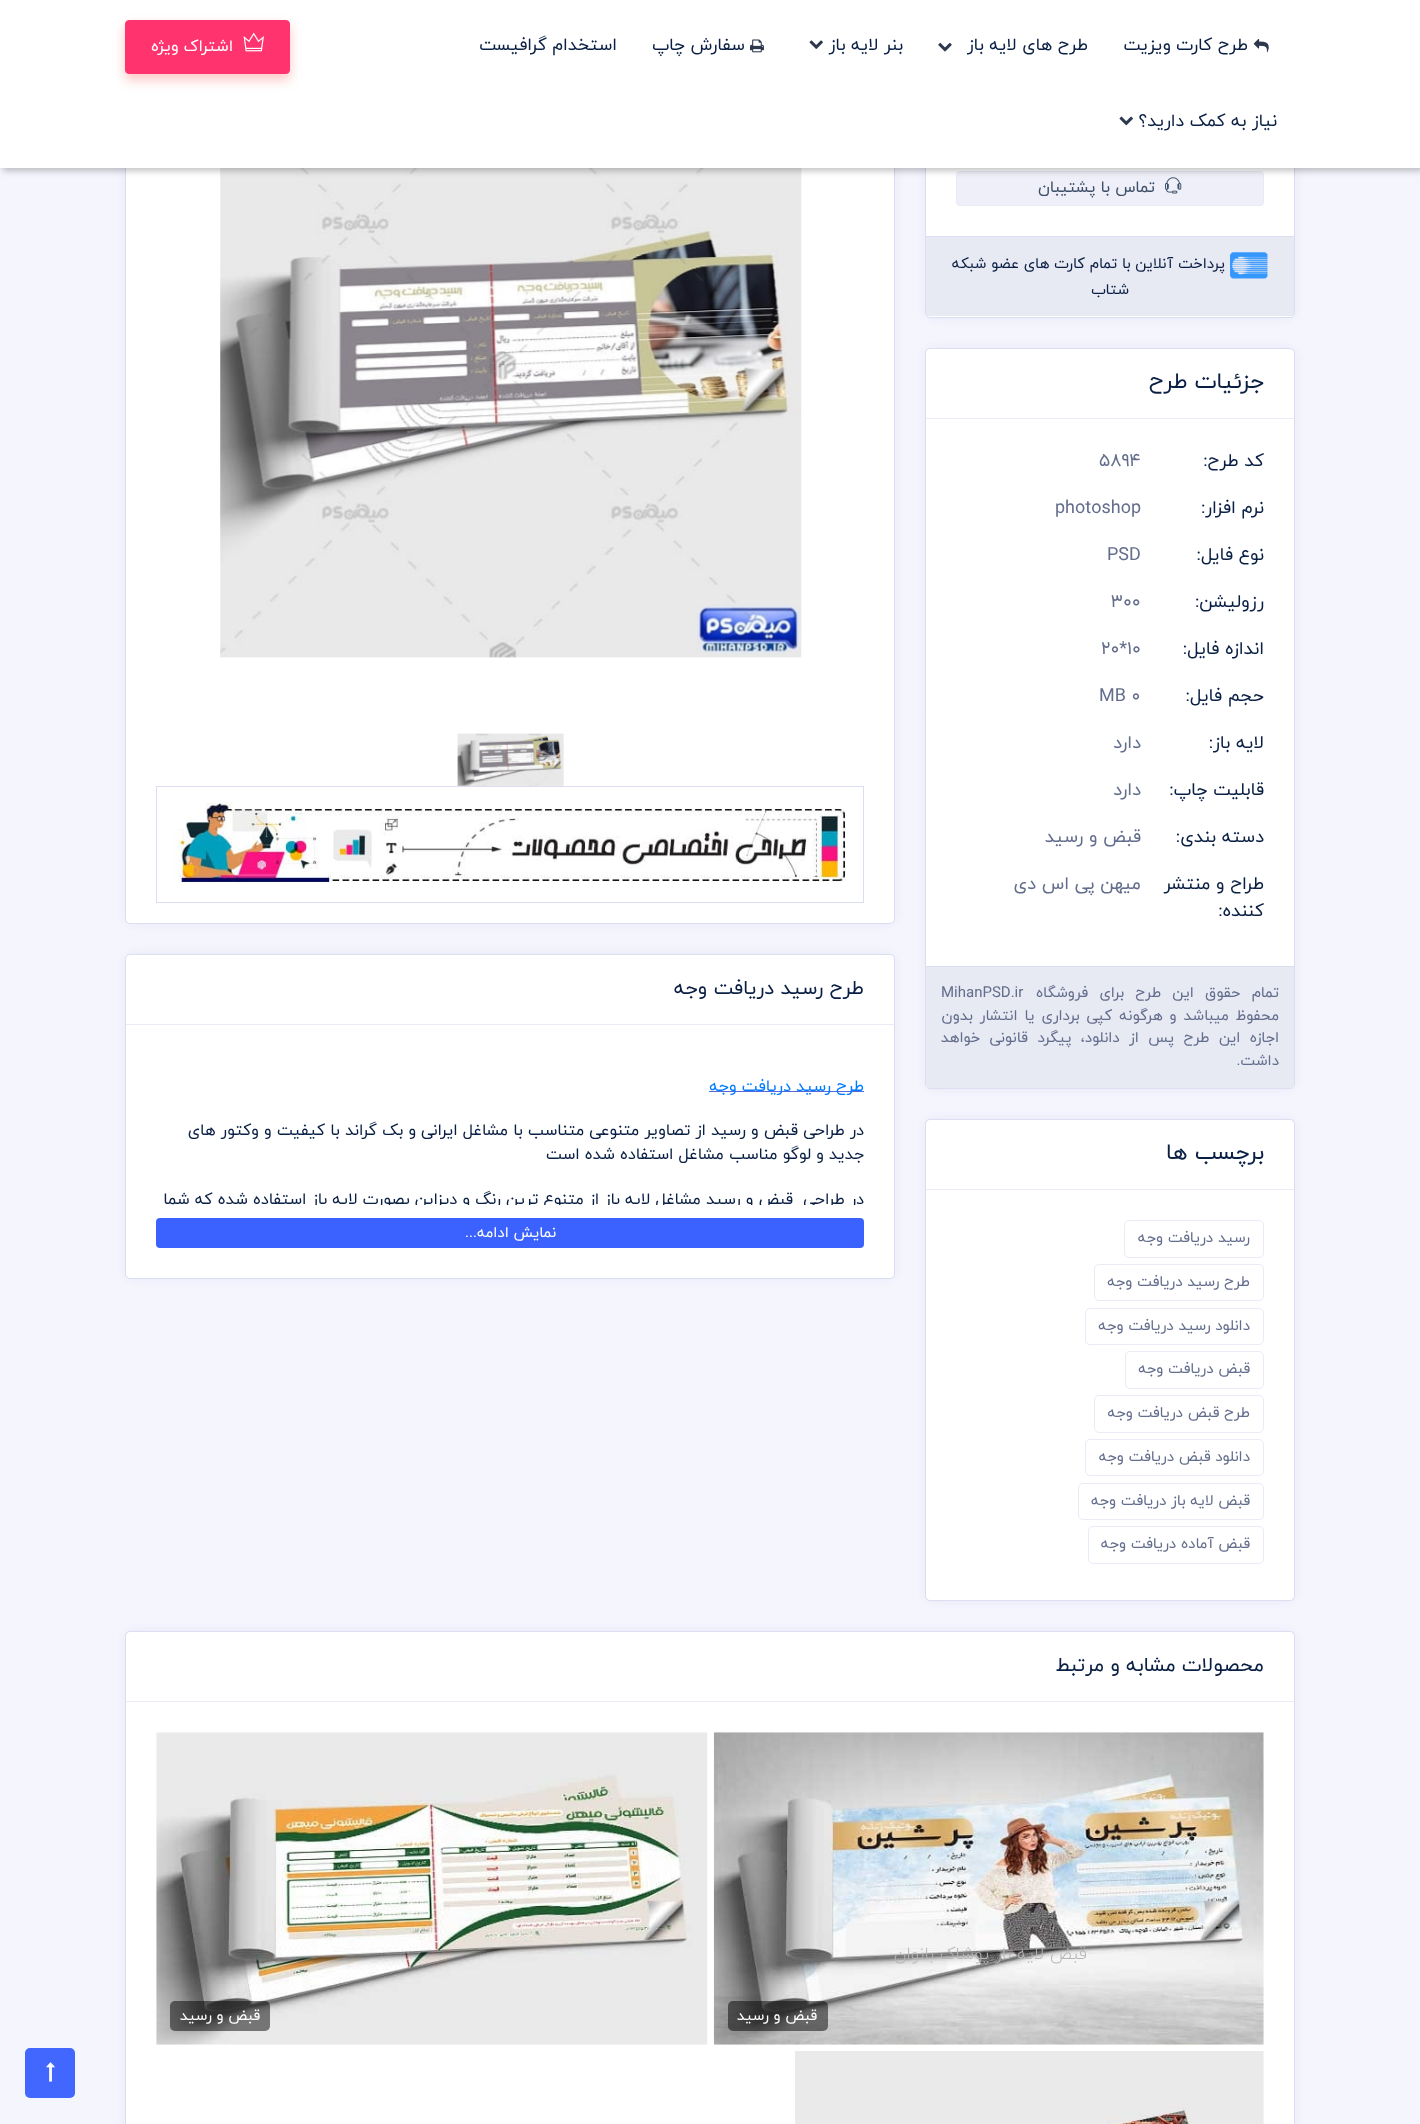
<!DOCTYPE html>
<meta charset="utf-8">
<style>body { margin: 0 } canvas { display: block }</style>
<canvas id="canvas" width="1420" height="2124"></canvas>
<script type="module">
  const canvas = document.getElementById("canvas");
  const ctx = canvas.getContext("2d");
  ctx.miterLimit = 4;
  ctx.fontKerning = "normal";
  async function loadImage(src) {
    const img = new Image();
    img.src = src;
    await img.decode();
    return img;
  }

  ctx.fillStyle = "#f5f6fd";
  ctx.fillRect(0, 0, 1420, 2124);
  ctx.fillStyle = "rgba(21, 17, 148, 0.06)";
  ctx.filter = "blur(7.5px)";
  ctx.beginPath();
  ctx.roundRect(925, -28, 370, 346, 5);
  ctx.fill();
  ctx.filter = "none";
  ctx.fillStyle = "#ffffff";
  ctx.beginPath();
  ctx.roundRect(925.5, -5.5, 369, 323, 4.5);
  ctx.fill();
  ctx.strokeStyle = "#dbddf1";
  ctx.stroke();
  ctx.fillStyle = "#eeeff9";
  ctx.beginPath();
  ctx.roundRect(956.5, 171.5, 307, 34, 3.5);
  ctx.fill();
  ctx.strokeStyle = "#e8ebf3";
  ctx.stroke();
  ctx.drawImage(await loadImage("img7.png"), 1165, 177, 17, 17);
  ctx.fillStyle = "rgba(21, 17, 148, 0.06)";
  ctx.filter = "blur(7.5px)";
  ctx.beginPath();
  ctx.roundRect(125, -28, 770, 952, 5);
  ctx.fill();
  ctx.filter = "none";
  ctx.fillStyle = "#ffffff";
  ctx.beginPath();
  ctx.roundRect(125.5, -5.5, 769, 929, 4.5);
  ctx.fill();
  ctx.strokeStyle = "#dbddf1";
  ctx.stroke();
  ctx.drawImage(await loadImage("img9.png"), 220, 168, 582, 490);
  ctx.fillStyle = "rgba(0, 0, 0, 0.24)";
  ctx.filter = "blur(3px)";
  ctx.beginPath();
  ctx.rect(3, 4, 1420, 167);
  ctx.fill();
  ctx.filter = "none";
  ctx.fillStyle = "#ffffff";
  ctx.fillRect(0, 0, 1420, 168);
  ctx.drawImage(await loadImage("img1.png"), 1253, 39, 16, 14);
  ctx.direction = "rtl";
  ctx.font = "17.5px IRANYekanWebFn";
  ctx.fillStyle = "#0a1f44";
  ctx.fillText("طرح کارت ویزیت", 1248, 50);
  ctx.fillText("طرح های لایه باز", 1088, 50);
  ctx.drawImage(await loadImage("img2.png"), 938, 42, 14, 10);
  ctx.fillText("بنر لایه باز", 903, 50);
  ctx.drawImage(await loadImage("img3.png"), 809, 40, 14, 9);
  ctx.drawImage(await loadImage("img4.png"), 750, 39, 14, 14);
  ctx.fillText("سفارش چاپ", 745, 50);
  ctx.fillText("استخدام گرافیست", 617, 50);
  ctx.fillText("نیاز به کمک دارید؟", 1277, 126);
  ctx.drawImage(await loadImage("img5.png"), 1119, 116, 14, 10);
  ctx.fillStyle = "rgba(248, 66, 66, 0.3)";
  ctx.filter = "blur(6px)";
  ctx.beginPath();
  ctx.roundRect(125, 26, 165, 54, 4);
  ctx.fill();
  ctx.filter = "none";
  ctx.fillStyle = "#ff336e";
  ctx.beginPath();
  ctx.roundRect(125.5, 20.5, 164, 53, 3.5);
  ctx.fill();
  ctx.strokeStyle = "#ff336e";
  ctx.stroke();
  ctx.drawImage(await loadImage("img6.png"), 243, 32, 21, 20);
  ctx.font = "16.25px IRANYekanWebFn";
  ctx.fillStyle = "#ffffff";
  ctx.fillText("اشتراک ویژه", 233, 51);
  ctx.fillStyle = "#3d4e67";
  ctx.fillText("تماس با پشتیبان", 1155, 192);
  ctx.fillStyle = "#e7e9f3";
  ctx.fillRect(926, 237, 368, 79);
  ctx.fillStyle = "#dbddf1";
  ctx.fillRect(926, 236, 368, 1);
  ctx.drawImage(await loadImage("img8.png"), 1230, 252, 38, 27);
  ctx.font = "15px IRANYekanWebFn";
  ctx.fillStyle = "#0a1f44";
  ctx.fillText("پرداخت آنلاین با تمام کارت های عضو شبکه", 1225, 268);
  ctx.fillText("شتاب", 1129, 294);
  ctx.fillStyle = "rgba(21, 17, 148, 0.06)";
  ctx.filter = "blur(7.5px)";
  ctx.beginPath();
  ctx.roundRect(925, 348, 370, 741, 5);
  ctx.fill();
  ctx.filter = "none";
  ctx.fillStyle = "#ffffff";
  ctx.beginPath();
  ctx.roundRect(925.5, 348.5, 369, 740, 4.5);
  ctx.fill();
  ctx.strokeStyle = "#dbddf1";
  ctx.stroke();
  ctx.fillStyle = "#eaebf7";
  ctx.fillRect(926, 418, 368, 1);
  ctx.font = "22.5px IRANYekanWebFn";
  ctx.fillStyle = "#0a1f44";
  ctx.fillText("جزئیات طرح", 1264, 388);
  ctx.font = "18px IRANYekanWebFn";
  ctx.fillText("کد طرح:", 1264, 466);
  ctx.direction = "ltr";
  ctx.fillStyle = "#636d8c";
  ctx.fillText("5894", 1099, 466);
  ctx.direction = "rtl";
  ctx.fillStyle = "#0a1f44";
  ctx.fillText("نرم افزار:", 1264, 513);
  ctx.direction = "ltr";
  ctx.fillStyle = "#636d8c";
  ctx.fillText("photoshop", 1055, 513);
  ctx.direction = "rtl";
  ctx.fillStyle = "#0a1f44";
  ctx.fillText("نوع فایل:", 1264, 560);
  ctx.direction = "ltr";
  ctx.fillStyle = "#636d8c";
  ctx.fillText("PSD", 1107, 560);
  ctx.direction = "rtl";
  ctx.fillStyle = "#0a1f44";
  ctx.fillText("رزولیشن:", 1264, 607);
  ctx.direction = "ltr";
  ctx.fillStyle = "#636d8c";
  ctx.fillText("300", 1111, 607);
  ctx.direction = "rtl";
  ctx.fillStyle = "#0a1f44";
  ctx.fillText("اندازه فایل:", 1264, 654);
  ctx.direction = "ltr";
  ctx.fillStyle = "#636d8c";
  ctx.fillText("20*10", 1101, 654);
  ctx.direction = "rtl";
  ctx.fillStyle = "#0a1f44";
  ctx.fillText("حجم فایل:", 1264, 701);
  ctx.direction = "ltr";
  ctx.fillStyle = "#636d8c";
  ctx.fillText("MB 0", 1099, 701);
  ctx.direction = "rtl";
  ctx.fillStyle = "#0a1f44";
  ctx.fillText("لایه باز:", 1264, 748);
  ctx.fillStyle = "#636d8c";
  ctx.fillText("دارد", 1141, 748);
  ctx.fillStyle = "#0a1f44";
  ctx.fillText("قابلیت چاپ:", 1264, 795);
  ctx.fillStyle = "#636d8c";
  ctx.fillText("دارد", 1141, 795);
  ctx.fillStyle = "#0a1f44";
  ctx.fillText("دسته بندی:", 1264, 842);
  ctx.fillStyle = "#636d8c";
  ctx.fillText("قبض و رسید", 1141, 842);
  ctx.fillStyle = "#0a1f44";
  ctx.fillText("طراح و منتشر", 1264, 889);
  ctx.fillText("کننده:", 1264, 916);
  ctx.fillStyle = "#636d8c";
  ctx.fillText("میهن پی اس دی", 1141, 889);
  ctx.fillStyle = "#e7e9f3";
  ctx.fillRect(926, 967, 368, 121);
  ctx.fillStyle = "#dbddf1";
  ctx.fillRect(926, 966, 368, 1);
  ctx.wordSpacing = "6.5px";
  ctx.font = "15px IRANYekanWebFn";
  ctx.fillStyle = "#636d8c";
  ctx.fillText("تمام حقوق این طرح برای فروشگاه", 1279, 997);
  ctx.wordSpacing = "0px";
  ctx.direction = "ltr";
  ctx.fillText("MihanPSD.ir", 941, 997);
  ctx.wordSpacing = "2.25px";
  ctx.direction = "rtl";
  ctx.fillText("محفوظ میباشد و هرگونه کپی برداری یا انتشار بدون", 1279, 1020);
  ctx.wordSpacing = "4.75px";
  ctx.fillText("اجازه این طرح پس از دانلود، پیگرد قانونی خواهد", 1279, 1042);
  ctx.wordSpacing = "0px";
  ctx.fillText("داشت.", 1279, 1065);
  ctx.fillStyle = "rgba(21, 17, 148, 0.06)";
  ctx.filter = "blur(7.5px)";
  ctx.beginPath();
  ctx.roundRect(925, 1119, 370, 482, 5);
  ctx.fill();
  ctx.filter = "none";
  ctx.fillStyle = "#ffffff";
  ctx.beginPath();
  ctx.roundRect(925.5, 1119.5, 369, 481, 4.5);
  ctx.fill();
  ctx.stroke();
  ctx.fillStyle = "#eaebf7";
  ctx.fillRect(926, 1189, 368, 1);
  ctx.font = "22.5px IRANYekanWebFn";
  ctx.fillStyle = "#0a1f44";
  ctx.fillText("برچسب ها", 1264, 1159);
  ctx.beginPath();
  ctx.roundRect(1124.5, 1220.5, 139, 37, 4.5);
  ctx.strokeStyle = "#eaebf7";
  ctx.stroke();
  ctx.font = "15px IRANYekanWebFn";
  ctx.fillStyle = "#636d8c";
  ctx.fillText("رسید دریافت وجه", 1250, 1242);
  ctx.beginPath();
  ctx.roundRect(1094.5, 1264.5, 169, 36, 4.5);
  ctx.stroke();
  ctx.fillText("طرح رسید دریافت وجه", 1250, 1286);
  ctx.beginPath();
  ctx.roundRect(1085.5, 1308.5, 178, 36, 4.5);
  ctx.stroke();
  ctx.fillText("دانلود رسید دریافت وجه", 1250, 1330);
  ctx.beginPath();
  ctx.roundRect(1125.5, 1351.5, 138, 37, 4.5);
  ctx.stroke();
  ctx.fillText("قبض دریافت وجه", 1250, 1373);
  ctx.beginPath();
  ctx.roundRect(1094.5, 1395.5, 169, 37, 4.5);
  ctx.stroke();
  ctx.fillText("طرح قبض دریافت وجه", 1250, 1417);
  ctx.beginPath();
  ctx.roundRect(1085.5, 1439.5, 178, 36, 4.5);
  ctx.stroke();
  ctx.fillText("دانلود قبض دریافت وجه", 1250, 1461);
  ctx.beginPath();
  ctx.roundRect(1078.5, 1483.5, 185, 36, 4.5);
  ctx.stroke();
  ctx.fillText("قبض لایه باز دریافت وجه", 1250, 1505);
  ctx.beginPath();
  ctx.roundRect(1088.5, 1526.5, 175, 37, 4.5);
  ctx.stroke();
  ctx.fillText("قبض آماده دریافت وجه", 1250, 1548);
  ctx.drawImage(await loadImage("img10.png"), 457, 733, 107, 53);
  ctx.strokeStyle = "#dbddf1";
  ctx.strokeRect(156.5, 786.5, 707, 116);
  ctx.drawImage(await loadImage("img11.png"), 172, 802, 674, 81);
  ctx.fillStyle = "rgba(21, 17, 148, 0.06)";
  ctx.filter = "blur(7.5px)";
  ctx.beginPath();
  ctx.roundRect(125, 954, 770, 325, 5);
  ctx.fill();
  ctx.filter = "none";
  ctx.fillStyle = "#ffffff";
  ctx.beginPath();
  ctx.roundRect(125.5, 954.5, 769, 324, 4.5);
  ctx.fill();
  ctx.stroke();
  ctx.fillStyle = "#eaebf7";
  ctx.fillRect(126, 1024, 768, 1);
  ctx.font = "20px IRANYekanWebFn";
  ctx.fillStyle = "#0a1f44";
  ctx.fillText("طرح رسید دریافت وجه", 864, 994);
  ctx.fillStyle = "#5867dd";
  ctx.fillRect(709, 1091, 155, 1);
  ctx.font = "16.25px IRANYekanWebFn";
  ctx.fillStyle = "#007bff";
  ctx.fillText("طرح رسید دریافت وجه", 864, 1091);
  ctx.fillStyle = "#0a1f44";
  ctx.fillText("در طراحی قبض و رسید از تصاویر متنوعی متناسب با مشاغل ایرانی و بک گراند با کیفیت و وکتور های", 864, 1135);
  ctx.fillText("جدید و لوگو مناسب مشاغل استفاده شده است", 864, 1159);
  ctx.save();
  ctx.beginPath();
  ctx.rect(156, 1055, 708, 150);
  ctx.clip();
  ctx.fillText("در طراحی  قبض و رسید مشاغل لایه باز از متنوع ترین رنگ و دیزاین بصورت لایه باز استفاده شده که شما", 864, 1204);
  ctx.restore();
  ctx.fillStyle = "#3b62fe";
  ctx.beginPath();
  ctx.roundRect(156, 1218, 708, 30, 4);
  ctx.fill();
  ctx.font = "15px IRANYekanWebFn";
  ctx.fillStyle = "#ffffff";
  ctx.fillText("نمایش ادامه...", 556, 1237);
  ctx.fillStyle = "rgba(21, 17, 148, 0.06)";
  ctx.filter = "blur(7.5px)";
  ctx.beginPath();
  ctx.roundRect(125, 1631, 1170, 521, 5);
  ctx.fill();
  ctx.filter = "none";
  ctx.fillStyle = "#ffffff";
  ctx.beginPath();
  ctx.roundRect(125.5, 1631.5, 1169, 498, 4.5);
  ctx.fill();
  ctx.stroke();
  ctx.fillStyle = "#eaebf7";
  ctx.fillRect(126, 1701, 1168, 1);
  ctx.font = "20px IRANYekanWebFn";
  ctx.fillStyle = "#0a1f44";
  ctx.fillText("محصولات مشابه و مرتبط", 1264, 1671);
  ctx.drawImage(await loadImage("img12.png"), 713, 1732, 551, 313);
  ctx.font = "300 17.5px IRANYekanWebFn";
  ctx.fillStyle = "#b6b6b6";
  ctx.fillText("قبض لایه باز پوشاک بانوان", 1087, 1959);
  ctx.fillStyle = "rgba(0, 0, 0, 0.5)";
  ctx.beginPath();
  ctx.roundRect(728, 2001, 100, 30, 5);
  ctx.fill();
  ctx.font = "15px IRANYekanWebFn";
  ctx.fillStyle = "#ffffff";
  ctx.fillText("قبض و رسید", 817, 2020);
  ctx.drawImage(await loadImage("img13.png"), 156, 1732, 552, 313);
  ctx.fillStyle = "rgba(0, 0, 0, 0.5)";
  ctx.beginPath();
  ctx.roundRect(170, 2001, 100, 30, 5);
  ctx.fill();
  ctx.fillStyle = "#ffffff";
  ctx.fillText("قبض و رسید", 260, 2020);
  ctx.drawImage(await loadImage("img14.png"), 795, 2051, 469, 73);
  ctx.fillStyle = "#4167fe";
  ctx.beginPath();
  ctx.roundRect(25, 2048, 50, 50, 5);
  ctx.fill();
  ctx.drawImage(await loadImage("img15.png"), 46, 2062, 9, 20);
</script>
